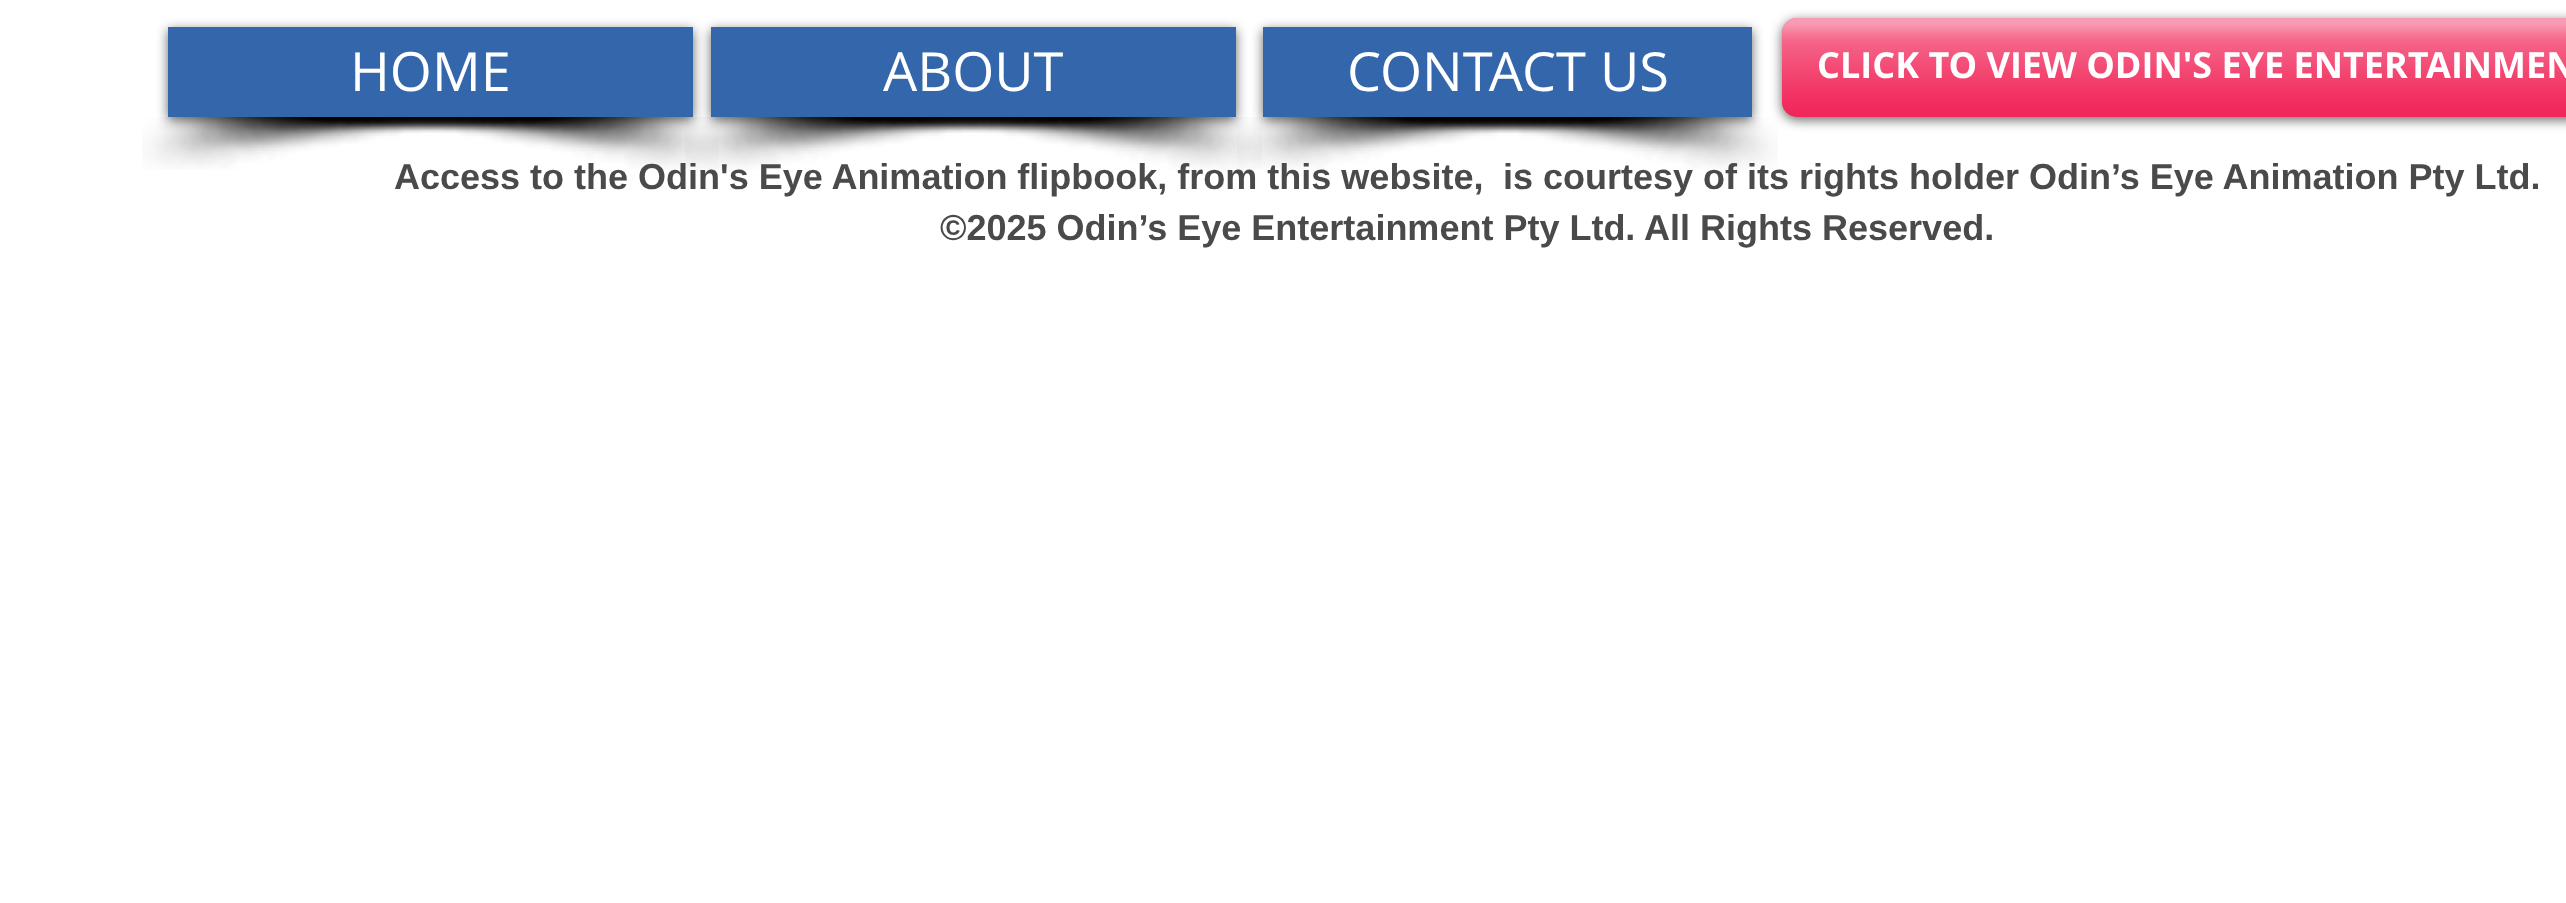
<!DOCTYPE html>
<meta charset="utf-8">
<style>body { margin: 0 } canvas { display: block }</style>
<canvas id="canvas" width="2566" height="903"></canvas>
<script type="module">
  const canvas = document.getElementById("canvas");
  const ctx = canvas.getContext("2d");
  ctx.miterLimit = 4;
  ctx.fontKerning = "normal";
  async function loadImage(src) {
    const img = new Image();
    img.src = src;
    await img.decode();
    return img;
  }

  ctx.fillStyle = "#ffffff";
  ctx.fillRect(0, 0, 2566, 903);
  ctx.drawImage(await loadImage("img1.png"), 142, 117, 461, 53);
  ctx.drawImage(await loadImage("img2.png"), 341, 117, 378, 53);
  ctx.fillStyle = "rgba(0, 0, 0, 0.6)";
  ctx.filter = "blur(6px)";
  ctx.beginPath();
  ctx.rect(168, 30, 525, 90);
  ctx.fill();
  ctx.filter = "none";
  ctx.fillStyle = "#3366aa";
  ctx.fillRect(168, 27, 525, 90);
  ctx.font = "54px Open Sans";
  ctx.fillStyle = "#ffffff";
  ctx.fillText("HOME", 350, 91);
  ctx.drawImage(await loadImage("img3.png"), 685, 117, 461, 53);
  ctx.drawImage(await loadImage("img2.png"), 884, 117, 378, 53);
  ctx.fillStyle = "rgba(0, 0, 0, 0.6)";
  ctx.filter = "blur(6px)";
  ctx.beginPath();
  ctx.rect(711, 30, 525, 90);
  ctx.fill();
  ctx.filter = "none";
  ctx.fillStyle = "#3366aa";
  ctx.fillRect(711, 27, 525, 90);
  ctx.fillStyle = "#ffffff";
  ctx.fillText("ABOUT", 883, 91);
  ctx.drawImage(await loadImage("img4.png"), 1237, 117, 461, 53);
  ctx.drawImage(await loadImage("img5.png"), 1400, 117, 378, 53);
  ctx.fillStyle = "rgba(0, 0, 0, 0.6)";
  ctx.filter = "blur(6px)";
  ctx.beginPath();
  ctx.rect(1263, 30, 489, 90);
  ctx.fill();
  ctx.filter = "none";
  ctx.fillStyle = "#3366aa";
  ctx.fillRect(1263, 27, 489, 90);
  ctx.fillStyle = "#ffffff";
  ctx.fillText("CONTACT US", 1347, 91);
  ctx.fillStyle = "rgba(0, 0, 0, 0.6)";
  ctx.filter = "blur(6px)";
  ctx.beginPath();
  ctx.roundRect(1782, 21, 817, 99, 15);
  ctx.fill();
  ctx.filter = "none";
  ctx.fillStyle = "#f01149";
  ctx.beginPath();
  ctx.roundRect(1782, 18, 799, 99, 15);
  ctx.fill();
  ctx.drawImage(await loadImage("img6.png"), 1782, 18, 784, 99);
  ctx.font = "bold 36px Open Sans";
  ctx.fillStyle = "#ffffff";
  ctx.fillText("CLICK TO VIEW ODIN'S EYE ENTERTAINMEN", 1817, 78);
  ctx.font = "bold 36px Liberation Sans";
  ctx.fillStyle = "#4a4a4a";
  ctx.fillText("Access to the Odin's Eye Animation flipbook, from this website,", 394, 189);
  ctx.fillText("is courtesy of its rights holder Odin’s Eye Animation Pty Ltd.", 1503, 189);
  ctx.fillText("©2025 Odin’s Eye Entertainment Pty Ltd. All Rights Reserved.", 940, 240);
</script>
